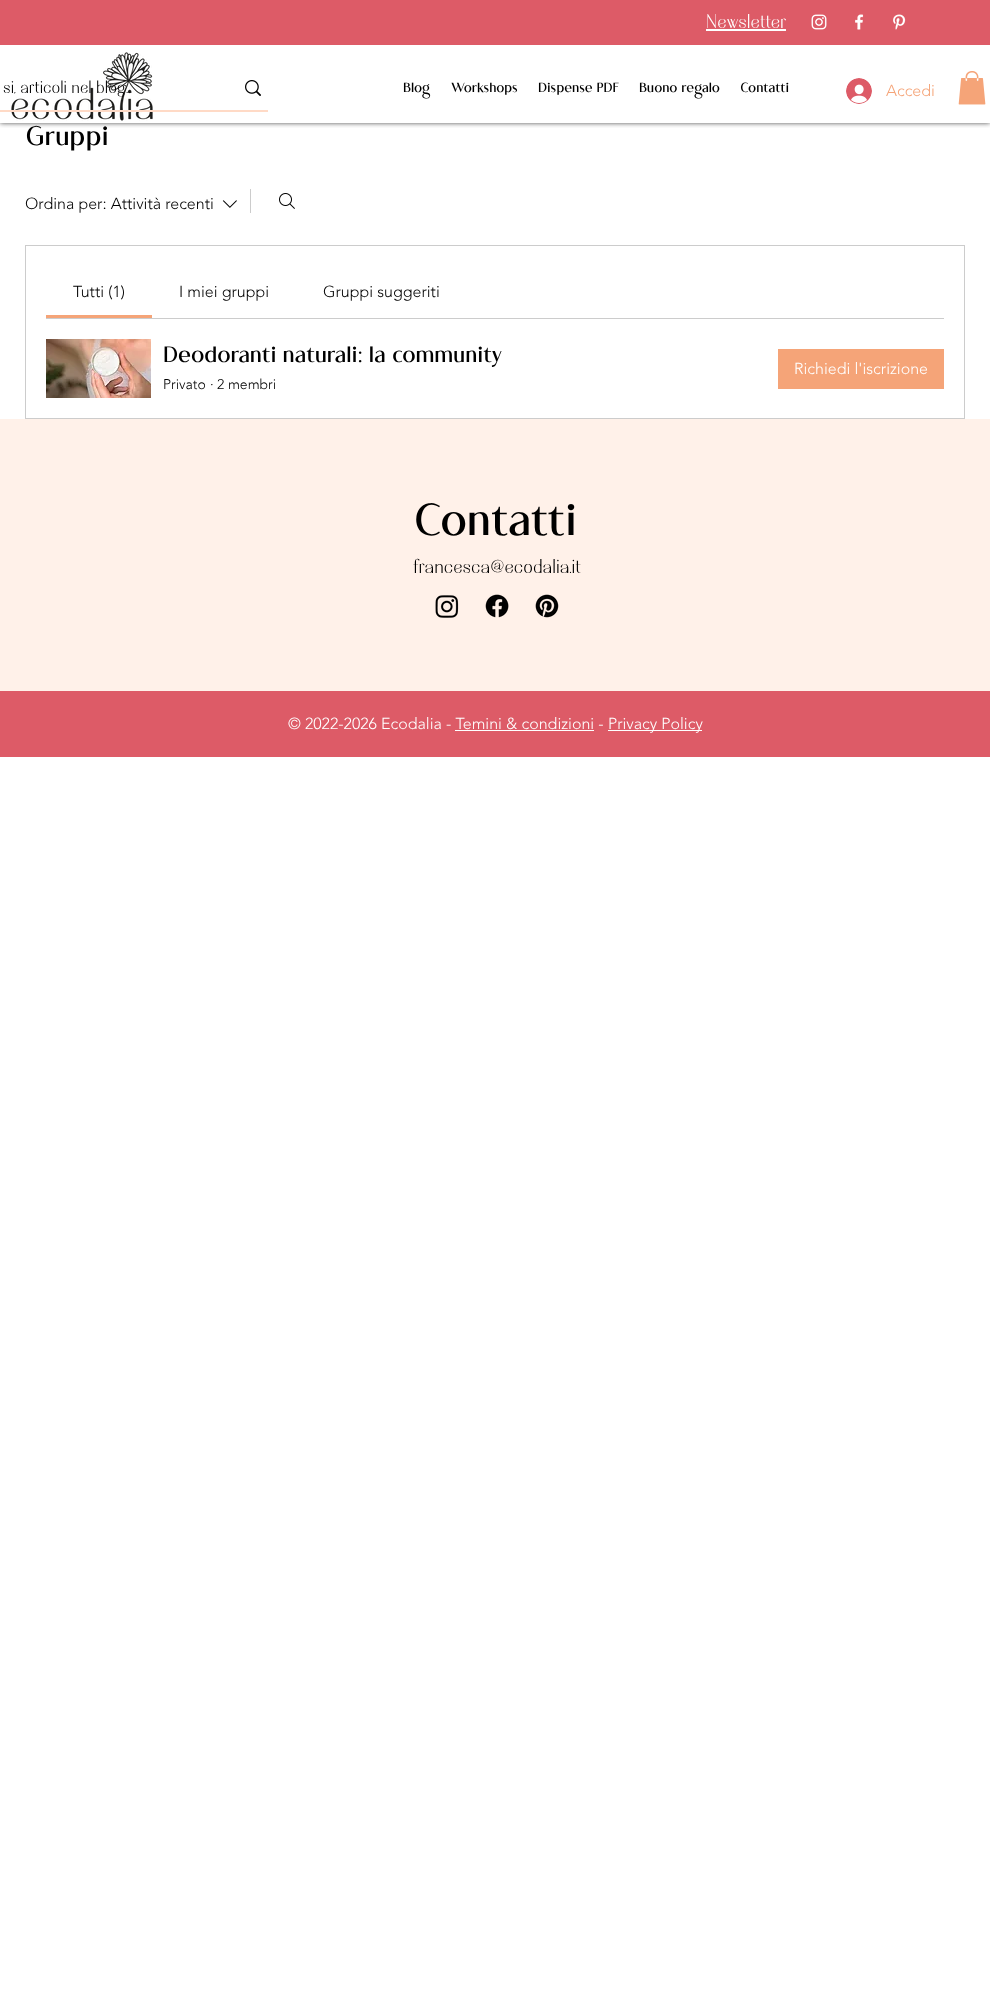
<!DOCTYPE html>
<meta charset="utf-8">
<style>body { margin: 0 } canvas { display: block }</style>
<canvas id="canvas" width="990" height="2005"></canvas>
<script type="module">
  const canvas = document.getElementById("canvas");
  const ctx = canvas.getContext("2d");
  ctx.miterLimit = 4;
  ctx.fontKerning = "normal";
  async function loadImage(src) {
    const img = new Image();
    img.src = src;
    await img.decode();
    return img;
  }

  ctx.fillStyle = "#ffffff";
  ctx.fillRect(0, 0, 990, 2005);
  ctx.save();
  ctx.beginPath();
  ctx.rect(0, 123, 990, 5);
  ctx.clip();
  ctx.fillStyle = "rgba(0, 0, 0, 0.7)";
  ctx.filter = "blur(2.5px)";
  ctx.beginPath();
  ctx.rect(0, 0, 990, 123);
  ctx.fill();
  ctx.filter = "none";
  ctx.restore();
  ctx.fillStyle = "#dd5b67";
  ctx.fillRect(0, 0, 990, 45);
  ctx.font = "600 20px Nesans";
  ctx.fillStyle = "#ffffff";
  ctx.fillText("Newsletter", 706, 28);
  ctx.fillRect(706, 29, 80, 2);
  ctx.drawImage(await loadImage("img1.png"), 811, 14, 16, 16);
  ctx.drawImage(await loadImage("img2.png"), 855, 14, 9, 16);
  ctx.drawImage(await loadImage("img3.png"), 893, 14, 13, 16);
  ctx.drawImage(await loadImage("img4.png"), 11, 52, 142, 69);
  ctx.fillStyle = "#ffdac6";
  ctx.fillRect(0, 110, 268, 2);
  ctx.font = "600 18px Nesans";
  ctx.fillStyle = "#000000";
  ctx.fillText("si, articoli nel blog...", 3, 93);
  ctx.drawImage(await loadImage("img5.png"), 245, 80, 16, 16);
  ctx.font = "12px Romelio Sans";
  ctx.fillText("Blog", 403, 92);
  ctx.fillText("Workshops", 451, 92);
  ctx.fillText("Dispense PDF", 538, 92);
  ctx.fillText("Buono regalo", 639, 92);
  ctx.fillText("Contatti", 740, 92);
  ctx.drawImage(await loadImage("img6.png"), 846, 78, 26, 26);
  ctx.font = "300 16px 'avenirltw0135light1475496'";
  ctx.fillStyle = "#f5a478";
  ctx.fillText("Accedi", 886, 96);
  ctx.drawImage(await loadImage("img7.png"), 958, 71, 28, 34);
  ctx.font = "24px Romelio Sans";
  ctx.fillStyle = "#000000";
  ctx.fillText("Gruppi", 25, 145);
  ctx.font = "300 16px 'avenirltw0135light1475496'";
  ctx.fillText("Ordina per: Attività recenti", 25, 209);
  ctx.drawImage(await loadImage("img8.png"), 222, 200, 15, 8);
  ctx.fillStyle = "#cccccc";
  ctx.fillRect(250, 189, 1, 24);
  ctx.drawImage(await loadImage("img9.png"), 279, 193, 16, 16);
  ctx.strokeStyle = "#cccccc";
  ctx.strokeRect(25.5, 245.5, 939, 173);
  ctx.fillRect(46, 318, 898, 1);
  ctx.fillStyle = "#f5a478";
  ctx.fillRect(46, 315, 106, 3);
  ctx.fillStyle = "#000000";
  ctx.fillText("Tutti (1)", 73, 297);
  ctx.fillText("I miei gruppi", 179, 297);
  ctx.fillText("Gruppi suggeriti", 323, 297);
  ctx.drawImage(await loadImage("img10.png"), 46, 339, 105, 59);
  ctx.font = "20px Romelio Sans";
  ctx.fillText("Deodoranti naturali: la community", 163, 362);
  ctx.font = "300 14px 'avenirltw0135light1475496'";
  ctx.fillText("Privato", 163, 389);
  ctx.fillText("·", 210, 389);
  ctx.fillText("2 membri", 217, 389);
  ctx.fillStyle = "#f5a478";
  ctx.fillRect(778, 349, 166, 40);
  ctx.font = "300 16px 'avenirltw0135light1475496'";
  ctx.fillStyle = "#ffffff";
  ctx.fillText("Richiedi l'iscrizione", 794, 374);
  ctx.fillStyle = "#fff1e9";
  ctx.fillRect(0, 419, 990, 272);
  ctx.font = "40px Romelio Sans";
  ctx.fillStyle = "#000000";
  ctx.fillText("Contatti", 413, 535);
  ctx.font = "600 20px Nesans";
  ctx.fillText("francesca@ecodalia.it", 413, 573);
  ctx.drawImage(await loadImage("img11.png"), 435, 595, 24, 23);
  ctx.drawImage(await loadImage("img12.png"), 485, 594, 24, 24);
  ctx.drawImage(await loadImage("img13.png"), 535, 594, 24, 24);
  ctx.fillStyle = "#dd5b67";
  ctx.fillRect(0, 691, 990, 66);
  ctx.font = "300 16px 'avenirltw0135light1475496'";
  ctx.fillStyle = "#ffffff";
  ctx.fillText("© 2022-2026 Ecodalia - Temini & condizioni -", 288, 729);
  ctx.fillRect(455, 730, 139, 1);
  ctx.fillRect(608, 730, 94, 1);
  ctx.fillText("Privacy Policy", 608, 729);
</script>
